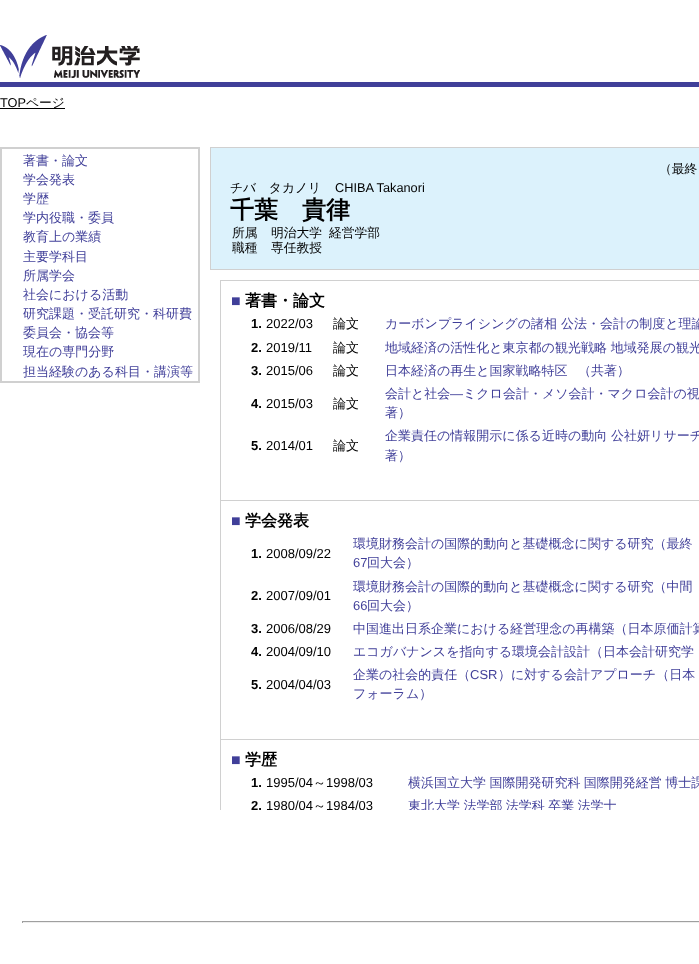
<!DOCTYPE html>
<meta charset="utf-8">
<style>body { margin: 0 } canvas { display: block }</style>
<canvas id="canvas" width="699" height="964"></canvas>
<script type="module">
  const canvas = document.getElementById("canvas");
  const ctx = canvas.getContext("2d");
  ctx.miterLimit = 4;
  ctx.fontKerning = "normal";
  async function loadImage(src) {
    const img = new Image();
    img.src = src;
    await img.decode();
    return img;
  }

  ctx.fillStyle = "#ffffff";
  ctx.fillRect(0, 0, 699, 964);
  ctx.drawImage(await loadImage("img1.png"), 0, 35, 140, 43);
  ctx.fillStyle = "#403f99";
  ctx.fillRect(0, 82, 699, 5);
  ctx.font = "12.75px Liberation Sans";
  ctx.fillStyle = "#000000";
  ctx.fillText("TOP", 0, 107);
  ctx.fillRect(0, 108, 65, 1);
  ctx.font = "500 12.75px WenQuanYi Zen Hei";
  ctx.fillText("ページ", 26, 107);
  ctx.fillStyle = "#d0d0d0";
  ctx.fillRect(0, 147, 200, 236);
  ctx.fillStyle = "#ffffff";
  ctx.fillRect(2, 149, 196, 232);
  ctx.font = "500 13px WenQuanYi Zen Hei";
  ctx.fillStyle = "#403f99";
  ctx.fillText("著書・論文", 23, 165);
  ctx.fillText("学会発表", 23, 184);
  ctx.fillText("学歴", 23, 203);
  ctx.fillText("学内役職・委員", 23, 222);
  ctx.fillText("教育上の業績", 23, 241);
  ctx.fillText("主要学科目", 23, 261);
  ctx.fillText("所属学会", 23, 280);
  ctx.fillText("社会における活動", 23, 299);
  ctx.fillText("研究課題・受託研究・科研費", 23, 318);
  ctx.fillText("委員会・協会等", 23, 337);
  ctx.fillText("現在の専門分野", 23, 356);
  ctx.fillText("担当経験のある科目・講演等", 23, 376);
  ctx.fillStyle = "#d0d0d0";
  ctx.fillRect(210, 147, 489, 123);
  ctx.fillStyle = "#dcf2fc";
  ctx.fillRect(211, 148, 488, 121);
  ctx.font = "500 12.75px WenQuanYi Zen Hei";
  ctx.fillStyle = "#000000";
  ctx.fillText("（最終", 659, 173);
  ctx.fillText("チバ　タカノリ", 230, 192);
  ctx.font = "12.75px Liberation Sans";
  ctx.fillText("CHIBA Takanori", 335, 192);
  ctx.font = "bold 24px WenQuanYi Zen Hei";
  ctx.fillText("千葉　貴律", 230, 218);
  ctx.font = "500 12.75px WenQuanYi Zen Hei";
  ctx.fillText("所属", 232, 237);
  ctx.fillText("明治大学", 271, 237);
  ctx.fillText("経営学部", 329, 237);
  ctx.fillText("職種", 232, 252);
  ctx.fillText("専任教授", 271, 252);
  ctx.fillStyle = "#d0d0d0";
  ctx.fillRect(220, 280, 479, 530);
  ctx.fillStyle = "#ffffff";
  ctx.fillRect(221, 281, 478, 219);
  ctx.font = "16px Liberation Sans";
  ctx.fillStyle = "#403f99";
  ctx.fillText("■", 231, 306);
  ctx.font = "bold 16px WenQuanYi Zen Hei";
  ctx.fillStyle = "#000000";
  ctx.fillText("著書・論文", 245, 306);
  ctx.font = "bold 13px Liberation Sans";
  ctx.fillText("1.", 251, 328);
  ctx.font = "13px Liberation Sans";
  ctx.fillText("2022/03", 266, 328);
  ctx.font = "500 13px WenQuanYi Zen Hei";
  ctx.fillText("論文", 333, 328);
  ctx.fillStyle = "#403f99";
  ctx.fillText("カーボンプライシングの諸相 公法・会計の制度と理論", 385, 328);
  ctx.font = "bold 13px Liberation Sans";
  ctx.fillStyle = "#000000";
  ctx.fillText("2.", 251, 352);
  ctx.font = "13px Liberation Sans";
  ctx.fillText("2019/11", 266, 352);
  ctx.font = "500 13px WenQuanYi Zen Hei";
  ctx.fillText("論文", 333, 352);
  ctx.fillStyle = "#403f99";
  ctx.fillText("地域経済の活性化と東京都の観光戦略 地域発展の観光", 385, 352);
  ctx.font = "bold 13px Liberation Sans";
  ctx.fillStyle = "#000000";
  ctx.fillText("3.", 251, 375);
  ctx.font = "13px Liberation Sans";
  ctx.fillText("2015/06", 266, 375);
  ctx.font = "500 13px WenQuanYi Zen Hei";
  ctx.fillText("論文", 333, 375);
  ctx.fillStyle = "#403f99";
  ctx.fillText("日本経済の再生と国家戦略特区", 385, 375);
  ctx.fillText("（共著）", 578, 375);
  ctx.font = "bold 13px Liberation Sans";
  ctx.fillStyle = "#000000";
  ctx.fillText("4.", 251, 408);
  ctx.font = "13px Liberation Sans";
  ctx.fillText("2015/03", 266, 408);
  ctx.font = "500 13px WenQuanYi Zen Hei";
  ctx.fillText("論文", 333, 408);
  ctx.fillStyle = "#403f99";
  ctx.fillText("会計と社会", 385, 398);
  ctx.font = "13px Liberation Sans";
  ctx.fillText("―", 450, 398);
  ctx.font = "500 13px WenQuanYi Zen Hei";
  ctx.fillText("ミクロ会計・メソ会計・マクロ会計の視", 463, 398);
  ctx.fillText("著）", 385, 417);
  ctx.font = "bold 13px Liberation Sans";
  ctx.fillStyle = "#000000";
  ctx.fillText("5.", 251, 450);
  ctx.font = "13px Liberation Sans";
  ctx.fillText("2014/01", 266, 450);
  ctx.font = "500 13px WenQuanYi Zen Hei";
  ctx.fillText("論文", 333, 450);
  ctx.fillStyle = "#403f99";
  ctx.fillText("企業責任の情報開示に係る近時の動向 公社妍リサーチ", 385, 440);
  ctx.fillText("著）", 385, 460);
  ctx.fillStyle = "#ffffff";
  ctx.fillRect(221, 501, 478, 238);
  ctx.font = "16px Liberation Sans";
  ctx.fillStyle = "#403f99";
  ctx.fillText("■", 231, 526);
  ctx.font = "bold 16px WenQuanYi Zen Hei";
  ctx.fillStyle = "#000000";
  ctx.fillText("学会発表", 245, 526);
  ctx.font = "bold 13px Liberation Sans";
  ctx.fillText("1.", 251, 558);
  ctx.font = "13px Liberation Sans";
  ctx.fillText("2008/09/22", 266, 558);
  ctx.font = "500 13px WenQuanYi Zen Hei";
  ctx.fillStyle = "#403f99";
  ctx.fillText("環境財務会計の国際的動向と基礎概念に関する研究（最終", 353, 548);
  ctx.font = "13px Liberation Sans";
  ctx.fillText("67", 353, 567);
  ctx.font = "500 13px WenQuanYi Zen Hei";
  ctx.fillText("回大会）", 367, 567);
  ctx.font = "bold 13px Liberation Sans";
  ctx.fillStyle = "#000000";
  ctx.fillText("2.", 251, 600);
  ctx.font = "13px Liberation Sans";
  ctx.fillText("2007/09/01", 266, 600);
  ctx.font = "500 13px WenQuanYi Zen Hei";
  ctx.fillStyle = "#403f99";
  ctx.fillText("環境財務会計の国際的動向と基礎概念に関する研究（中間", 353, 591);
  ctx.font = "13px Liberation Sans";
  ctx.fillText("66", 353, 610);
  ctx.font = "500 13px WenQuanYi Zen Hei";
  ctx.fillText("回大会）", 367, 610);
  ctx.font = "bold 13px Liberation Sans";
  ctx.fillStyle = "#000000";
  ctx.fillText("3.", 251, 633);
  ctx.font = "13px Liberation Sans";
  ctx.fillText("2006/08/29", 266, 633);
  ctx.font = "500 13px WenQuanYi Zen Hei";
  ctx.fillStyle = "#403f99";
  ctx.fillText("中国進出日系企業における経営理念の再構築（日本原価計算", 353, 633);
  ctx.font = "bold 13px Liberation Sans";
  ctx.fillStyle = "#000000";
  ctx.fillText("4.", 251, 656);
  ctx.font = "13px Liberation Sans";
  ctx.fillText("2004/09/10", 266, 656);
  ctx.font = "500 13px WenQuanYi Zen Hei";
  ctx.fillStyle = "#403f99";
  ctx.fillText("エコガバナンスを指向する環境会計設計（日本会計研究学", 353, 656);
  ctx.font = "bold 13px Liberation Sans";
  ctx.fillStyle = "#000000";
  ctx.fillText("5.", 251, 689);
  ctx.font = "13px Liberation Sans";
  ctx.fillText("2004/04/03", 266, 689);
  ctx.font = "500 13px WenQuanYi Zen Hei";
  ctx.fillStyle = "#403f99";
  ctx.fillText("企業の社会的責任（", 353, 679);
  ctx.font = "13px Liberation Sans";
  ctx.fillText("CSR", 470, 679);
  ctx.font = "500 13px WenQuanYi Zen Hei";
  ctx.fillText("）に対する会計アプローチ（日本", 498, 679);
  ctx.fillText("フォーラム）", 353, 698);
  ctx.fillStyle = "#ffffff";
  ctx.fillRect(221, 740, 478, 70);
  ctx.font = "16px Liberation Sans";
  ctx.fillStyle = "#403f99";
  ctx.fillText("■", 231, 765);
  ctx.font = "bold 16px WenQuanYi Zen Hei";
  ctx.fillStyle = "#000000";
  ctx.fillText("学歴", 245, 765);
  ctx.font = "bold 13px Liberation Sans";
  ctx.fillText("1.", 251, 787);
  ctx.font = "13px Liberation Sans";
  ctx.fillText("1995/04", 266, 787);
  ctx.font = "500 13px WenQuanYi Zen Hei";
  ctx.fillText("～", 313, 787);
  ctx.font = "13px Liberation Sans";
  ctx.fillText("1998/03", 326, 787);
  ctx.wordSpacing = "-0.5px";
  ctx.font = "500 13px WenQuanYi Zen Hei";
  ctx.fillStyle = "#403f99";
  ctx.fillText("横浜国立大学 国際開発研究科 国際開発経営 博士課", 408, 787);
  ctx.wordSpacing = "0px";
  ctx.font = "bold 13px Liberation Sans";
  ctx.fillStyle = "#000000";
  ctx.fillText("2.", 251, 810);
  ctx.save();
  ctx.beginPath();
  ctx.rect(200, 280, 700, 530);
  ctx.clip();
  ctx.font = "13px Liberation Sans";
  ctx.fillText("1980/04", 266, 810);
  ctx.restore();
  ctx.font = "500 13px WenQuanYi Zen Hei";
  ctx.fillText("～", 313, 810);
  ctx.save();
  ctx.beginPath();
  ctx.rect(200, 280, 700, 530);
  ctx.clip();
  ctx.font = "13px Liberation Sans";
  ctx.fillText("1984/03", 326, 810);
  ctx.wordSpacing = "-0.5px";
  ctx.font = "500 13px WenQuanYi Zen Hei";
  ctx.fillStyle = "#403f99";
  ctx.fillText("東北大学 法学部 法学科 卒業 法学士", 408, 810);
  ctx.restore();
  ctx.fillStyle = "#9f9f9f";
  ctx.fillRect(22, 921, 677, 1);
  ctx.fillStyle = "#eeeeee";
  ctx.fillRect(22, 922, 677, 1);
  ctx.fillStyle = "#9f9f9f";
  ctx.fillRect(22, 921, 1, 2);
</script>
